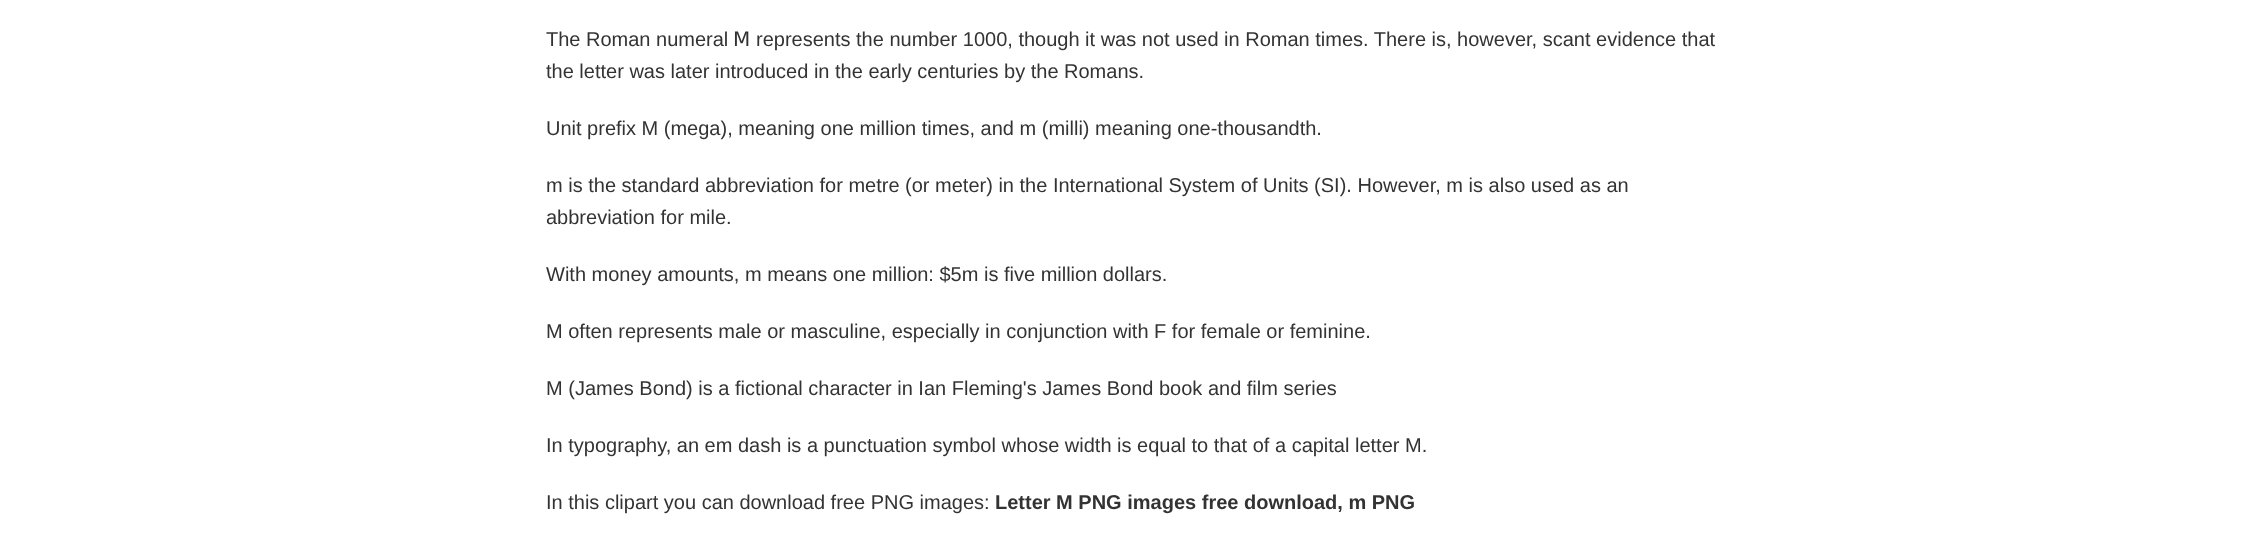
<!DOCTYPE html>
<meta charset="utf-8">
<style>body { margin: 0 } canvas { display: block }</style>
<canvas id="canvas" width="2266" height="543"></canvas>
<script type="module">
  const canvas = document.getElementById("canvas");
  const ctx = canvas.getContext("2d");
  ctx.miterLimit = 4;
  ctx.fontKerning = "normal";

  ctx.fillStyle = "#ffffff";
  ctx.fillRect(0, 0, 2266, 543);
  ctx.font = "20px Liberation Sans";
  ctx.fillStyle = "#333333";
  ctx.fillText("The Roman numeral", 546, 46);
  ctx.font = "20px DejaVu Sans";
  ctx.fillText("Ⅿ", 733, 46);
  ctx.font = "20px Liberation Sans";
  ctx.fillText("represents the number 1000, though it was not used in Roman times. There is, however, scant evidence that", 756, 46);
  ctx.fillText("the letter was later introduced in the early centuries by the Romans.", 546, 78);
  ctx.fillText("Unit prefix M (mega), meaning one million times, and m (milli) meaning one-thousandth.", 546, 135);
  ctx.fillText("m is the standard abbreviation for metre (or meter) in the International System of Units (SI). However, m is also used as an", 546, 192);
  ctx.fillText("abbreviation for mile.", 546, 224);
  ctx.fillText("With money amounts, m means one million: $5m is five million dollars.", 546, 281);
  ctx.fillText("M often represents male or masculine, especially in conjunction with F for female or feminine.", 546, 338);
  ctx.fillText("M (James Bond) is a fictional character in Ian Fleming's James Bond book and film series", 546, 395);
  ctx.fillText("In typography, an em dash is a punctuation symbol whose width is equal to that of a capital letter M.", 546, 452);
  ctx.fillText("In this clipart you can download free PNG images:", 546, 509);
  ctx.font = "bold 20px Liberation Sans";
  ctx.fillText("Letter M PNG images free download, m PNG", 995, 509);
</script>
